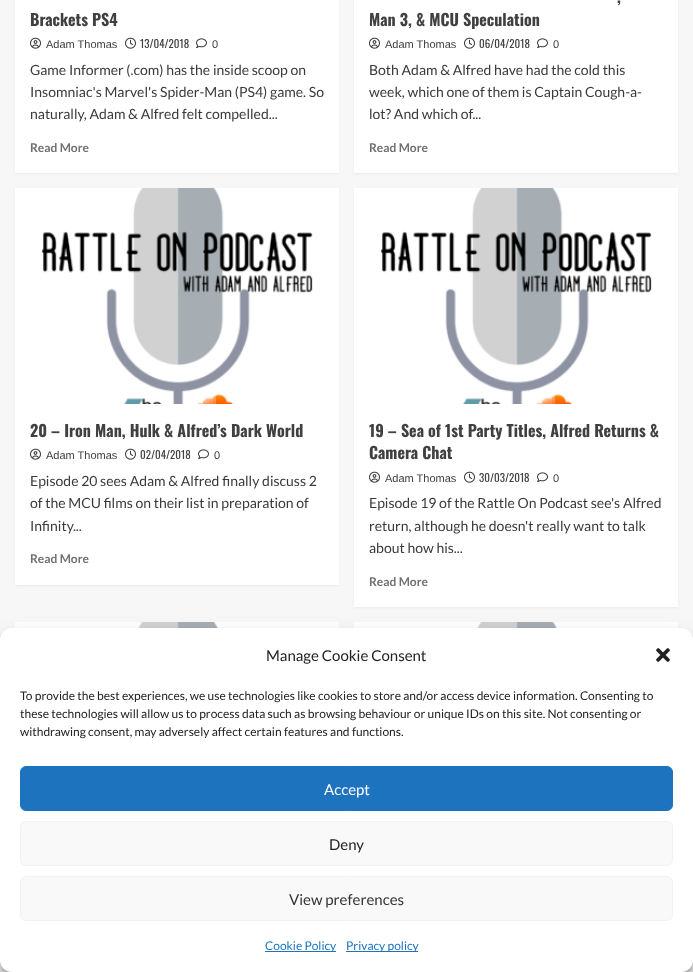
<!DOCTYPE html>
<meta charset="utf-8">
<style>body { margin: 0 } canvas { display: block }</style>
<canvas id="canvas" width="693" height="972"></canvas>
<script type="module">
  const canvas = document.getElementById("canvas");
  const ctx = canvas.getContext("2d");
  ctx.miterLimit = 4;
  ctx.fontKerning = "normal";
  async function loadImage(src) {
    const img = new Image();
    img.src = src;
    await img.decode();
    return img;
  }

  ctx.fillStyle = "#f7f7f7";
  ctx.fillRect(0, 0, 693, 972);
  ctx.fillStyle = "rgba(0, 0, 0, 0.05)";
  ctx.filter = "blur(1px)";
  ctx.beginPath();
  ctx.rect(15, -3, 324, 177);
  ctx.fill();
  ctx.filter = "none";
  ctx.fillStyle = "#ffffff";
  ctx.fillRect(15, 0, 324, 173);
  ctx.font = "bold 16px Oswald";
  ctx.fillStyle = "#404040";
  ctx.fillText("Brackets PS4", 30, 26);
  ctx.drawImage(await loadImage("img1.png"), 30, 37, 11, 12);
  ctx.font = "11px Liberation Sans";
  ctx.fillText("Adam Thomas", 46, 48);
  ctx.drawImage(await loadImage("img2.png"), 125, 37, 11, 12);
  ctx.font = "11px Oswald";
  ctx.fillText("13/04/2018", 140, 48);
  ctx.drawImage(await loadImage("img3.png"), 196, 38, 11, 10);
  ctx.font = "11px Liberation Sans";
  ctx.fillText("0", 212, 48);
  ctx.font = "14px Lato";
  ctx.fillStyle = "#3a3a3a";
  ctx.fillText("Game Informer (.com) has the inside scoop on", 30, 75);
  ctx.fillText("Insomniac's Marvel's Spider-Man (PS4) game. So", 30, 97);
  ctx.fillText("naturally, Adam & Alfred felt compelled...", 30, 119);
  ctx.font = "bold 12px Lato";
  ctx.fillStyle = "#707070";
  ctx.fillText("Read More", 30, 152);
  ctx.fillStyle = "rgba(0, 0, 0, 0.05)";
  ctx.filter = "blur(1px)";
  ctx.beginPath();
  ctx.rect(354, -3, 324, 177);
  ctx.fill();
  ctx.filter = "none";
  ctx.fillStyle = "#ffffff";
  ctx.fillRect(354, 0, 324, 173);
  ctx.font = "bold 16px Oswald";
  ctx.fillStyle = "#404040";
  ctx.fillText(",", 617, 3);
  ctx.fillText("Man 3, & MCU Speculation", 369, 26);
  ctx.drawImage(await loadImage("img1.png"), 369, 37, 11, 12);
  ctx.font = "11px Liberation Sans";
  ctx.fillText("Adam Thomas", 385, 48);
  ctx.drawImage(await loadImage("img2.png"), 464, 37, 11, 12);
  ctx.font = "11px Oswald";
  ctx.fillText("06/04/2018", 479, 48);
  ctx.drawImage(await loadImage("img3.png"), 537, 38, 11, 10);
  ctx.font = "11px Liberation Sans";
  ctx.fillText("0", 553, 48);
  ctx.font = "14px Lato";
  ctx.fillStyle = "#3a3a3a";
  ctx.fillText("Both Adam & Alfred have had the cold this", 369, 75);
  ctx.fillText("week, which one of them is Captain Cough-a-", 369, 97);
  ctx.fillText("lot? And which of...", 369, 119);
  ctx.font = "bold 12px Lato";
  ctx.fillStyle = "#707070";
  ctx.fillText("Read More", 369, 152);
  ctx.fillStyle = "rgba(0, 0, 0, 0.05)";
  ctx.filter = "blur(1px)";
  ctx.beginPath();
  ctx.rect(15, 189, 324, 397);
  ctx.fill();
  ctx.filter = "none";
  ctx.fillStyle = "#ffffff";
  ctx.fillRect(15, 404, 324, 181);
  ctx.drawImage(await loadImage("img4.png"), 15, 188, 324, 216);
  ctx.font = "bold 16px Oswald";
  ctx.fillStyle = "#404040";
  ctx.fillText("20 – Iron Man, Hulk & Alfred’s Dark World", 30, 437);
  ctx.drawImage(await loadImage("img1.png"), 30, 448, 11, 12);
  ctx.font = "11px Liberation Sans";
  ctx.fillText("Adam Thomas", 46, 459);
  ctx.drawImage(await loadImage("img2.png"), 125, 448, 11, 12);
  ctx.font = "11px Oswald";
  ctx.fillText("02/04/2018", 140, 459);
  ctx.drawImage(await loadImage("img3.png"), 198, 449, 11, 10);
  ctx.font = "11px Liberation Sans";
  ctx.fillText("0", 214, 459);
  ctx.font = "14px Lato";
  ctx.fillStyle = "#3a3a3a";
  ctx.fillText("Episode 20 sees Adam & Alfred finally discuss 2", 30, 486);
  ctx.fillText("of the MCU films on their list in preparation of", 30, 508);
  ctx.fillText("Infinity...", 30, 531);
  ctx.font = "bold 12px Lato";
  ctx.fillStyle = "#707070";
  ctx.fillText("Read More", 30, 563);
  ctx.fillStyle = "rgba(0, 0, 0, 0.05)";
  ctx.filter = "blur(1px)";
  ctx.beginPath();
  ctx.rect(354, 189, 324, 419);
  ctx.fill();
  ctx.filter = "none";
  ctx.fillStyle = "#ffffff";
  ctx.fillRect(354, 404, 324, 203);
  ctx.drawImage(await loadImage("img5.png"), 354, 188, 324, 216);
  ctx.font = "bold 16px Oswald";
  ctx.fillStyle = "#404040";
  ctx.fillText("19 – Sea of 1st Party Titles, Alfred Returns &", 369, 437);
  ctx.fillText("Camera Chat", 369, 459);
  ctx.drawImage(await loadImage("img1.png"), 369, 471, 11, 12);
  ctx.font = "11px Liberation Sans";
  ctx.fillText("Adam Thomas", 385, 482);
  ctx.drawImage(await loadImage("img2.png"), 464, 471, 11, 12);
  ctx.font = "11px Oswald";
  ctx.fillText("30/03/2018", 479, 482);
  ctx.drawImage(await loadImage("img3.png"), 537, 472, 11, 10);
  ctx.font = "11px Liberation Sans";
  ctx.fillText("0", 553, 482);
  ctx.font = "14px Lato";
  ctx.fillStyle = "#3a3a3a";
  ctx.fillText("Episode 19 of the Rattle On Podcast see's Alfred", 369, 508);
  ctx.fillText("return, although he doesn't really want to talk", 369, 531);
  ctx.fillText("about how his...", 369, 553);
  ctx.font = "bold 12px Lato";
  ctx.fillStyle = "#707070";
  ctx.fillText("Read More", 369, 586);
  ctx.drawImage(await loadImage("img6.png"), 15, 622, 324, 6);
  ctx.drawImage(await loadImage("img6.png"), 354, 622, 324, 6);
  ctx.fillStyle = "rgba(0, 0, 0, 0.23)";
  ctx.filter = "blur(3px)";
  ctx.beginPath();
  ctx.roundRect(0, 634, 693, 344, 12);
  ctx.fill();
  ctx.filter = "none";
  ctx.fillStyle = "rgba(0, 0, 0, 0.19)";
  ctx.filter = "blur(10px)";
  ctx.beginPath();
  ctx.roundRect(0, 638, 693, 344, 12);
  ctx.fill();
  ctx.filter = "none";
  ctx.fillStyle = "#ffffff";
  ctx.beginPath();
  ctx.roundRect(0, 628, 693, 344, 12);
  ctx.fill();
  ctx.font = "15px Lato";
  ctx.fillStyle = "#222222";
  ctx.fillText("Manage Cookie Consent", 266, 661);
  ctx.drawImage(await loadImage("img7.png"), 656, 648, 14, 14);
  ctx.font = "12px Lato";
  ctx.fillText("To provide the best experiences, we use technologies like cookies to store and/or access device information. Consenting to", 20, 700);
  ctx.fillText("these technologies will allow us to process data such as browsing behaviour or unique IDs on this site. Not consenting or", 20, 718);
  ctx.fillText("withdrawing consent, may adversely affect certain features and functions.", 20, 736);
  ctx.fillStyle = "#1e73be";
  ctx.beginPath();
  ctx.roundRect(20.5, 766.5, 652, 44, 5.5);
  ctx.fill();
  ctx.strokeStyle = "#1e73be";
  ctx.stroke();
  ctx.font = "15px Lato";
  ctx.fillStyle = "#ffffff";
  ctx.fillText("Accept", 324, 795);
  ctx.fillStyle = "#f9f9f9";
  ctx.beginPath();
  ctx.roundRect(20.5, 821.5, 652, 44, 5.5);
  ctx.fill();
  ctx.strokeStyle = "#f2f2f2";
  ctx.stroke();
  ctx.fillStyle = "#222222";
  ctx.fillText("Deny", 329, 850);
  ctx.fillStyle = "#f9f9f9";
  ctx.beginPath();
  ctx.roundRect(20.5, 876.5, 652, 44, 5.5);
  ctx.fill();
  ctx.stroke();
  ctx.fillStyle = "#333333";
  ctx.fillText("View preferences", 289, 905);
  ctx.fillStyle = "#1e73be";
  ctx.fillRect(265, 951, 71, 1);
  ctx.font = "12px Lato";
  ctx.fillText("Cookie Policy", 265, 950);
  ctx.fillRect(346, 951, 72, 1);
  ctx.fillText("Privacy policy", 346, 950);
</script>
